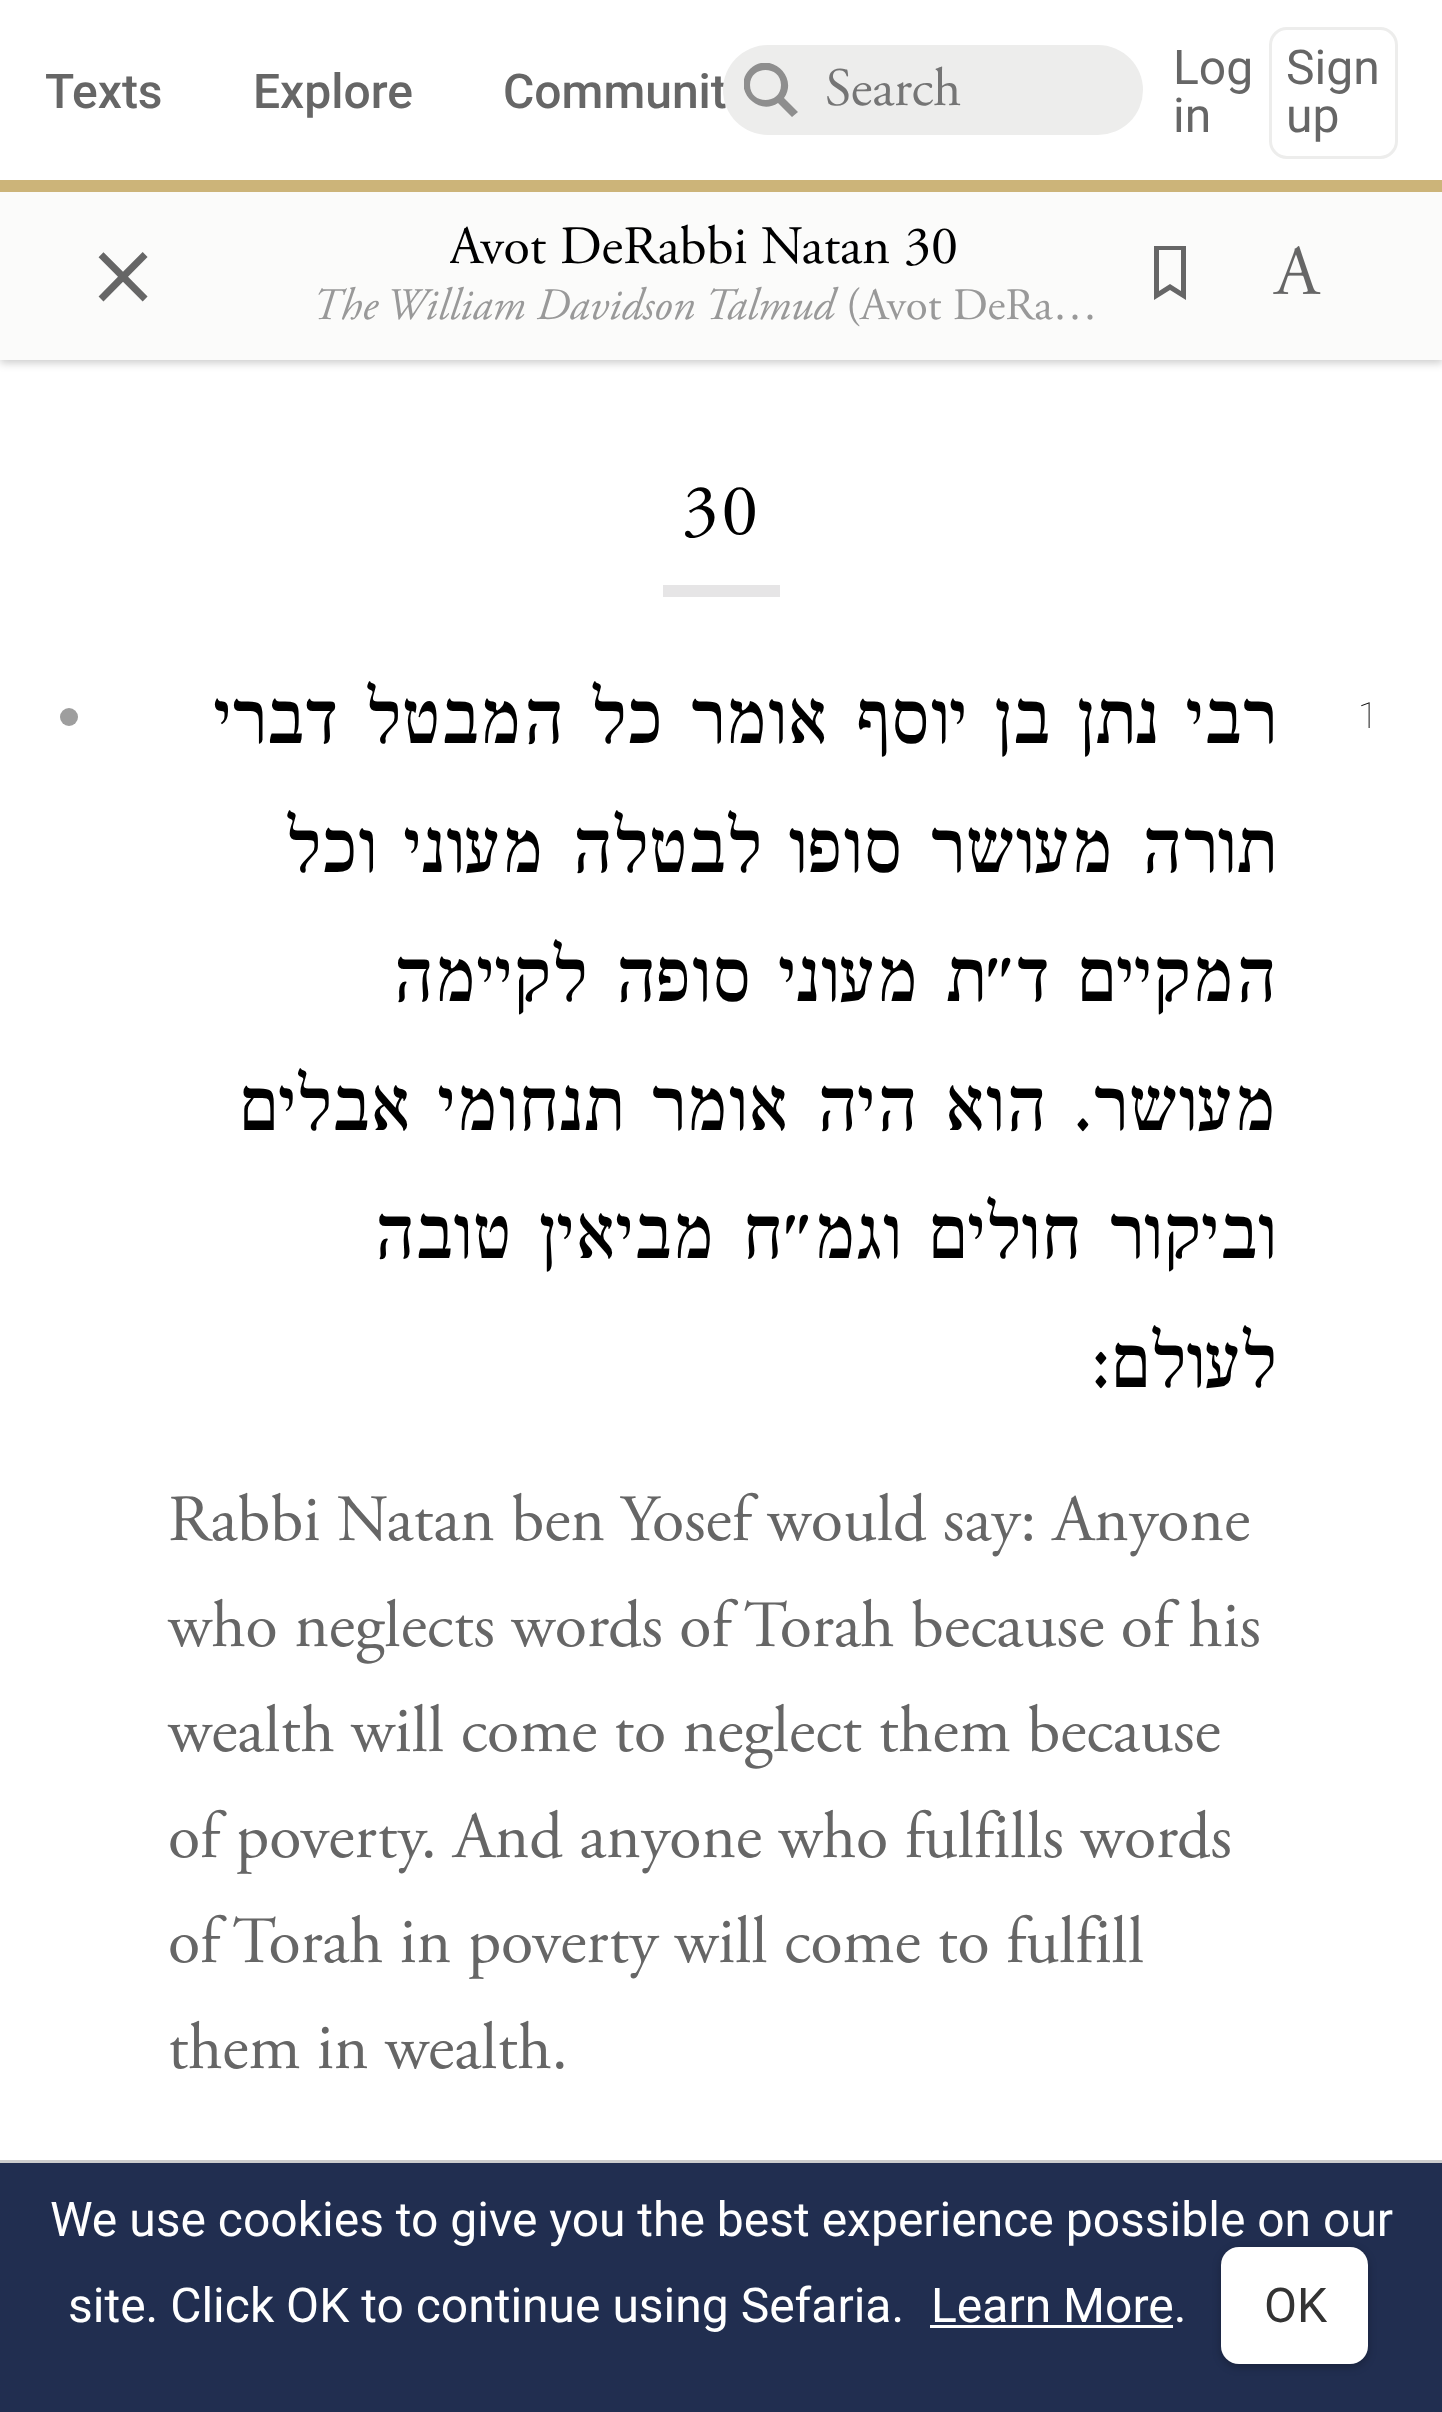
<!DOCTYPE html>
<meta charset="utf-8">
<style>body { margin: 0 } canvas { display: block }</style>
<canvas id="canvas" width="1442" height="2412"></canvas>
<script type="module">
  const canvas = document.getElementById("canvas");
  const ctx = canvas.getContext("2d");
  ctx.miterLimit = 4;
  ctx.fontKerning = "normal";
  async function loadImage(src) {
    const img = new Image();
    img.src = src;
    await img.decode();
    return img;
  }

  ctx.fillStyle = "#ffffff";
  ctx.fillRect(0, 0, 1442, 2412);
  ctx.font = "500 48px Roboto";
  ctx.fillStyle = "#666666";
  ctx.fillText("Texts", 45, 108);
  ctx.fillText("Explore", 253, 108);
  ctx.fillText("Communit", 503, 108);
  ctx.fillStyle = "#ededec";
  ctx.beginPath();
  ctx.roundRect(723, 45, 420, 90, 45);
  ctx.fill();
  ctx.save();
  ctx.beginPath();
  ctx.rect(744, 63, 54, 54);
  ctx.clip();
  ctx.fillStyle = "#8e8e8e";
  ctx.beginPath();
  ctx.moveTo(798, 112);
  ctx.lineTo(784, 98);
  ctx.bezierCurveTo(799, 77, 770, 50, 750, 69);
  ctx.bezierCurveTo(731, 88, 757, 117, 778, 103);
  ctx.lineTo(792, 117);
  ctx.closePath();
  ctx.moveTo(750, 85);
  ctx.bezierCurveTo(750, 65, 781, 65, 781, 85);
  ctx.bezierCurveTo(781, 105, 750, 105, 750, 85);
  ctx.closePath();
  ctx.fill();
  ctx.restore();
  ctx.font = "54px Adobe Garamond";
  ctx.fillStyle = "#757575";
  ctx.fillText("Search", 825, 105);
  ctx.font = "48px Roboto";
  ctx.fillStyle = "#666666";
  ctx.fillText("Log", 1173, 84);
  ctx.fillText("in", 1173, 132);
  ctx.beginPath();
  ctx.roundRect(1270.5, 28.5, 126, 129, 16.5);
  ctx.strokeStyle = "#ededec";
  ctx.lineWidth = 3;
  ctx.stroke();
  ctx.fillText("Sign", 1286, 84);
  ctx.fillText("up", 1286, 132);
  ctx.save();
  ctx.beginPath();
  ctx.rect(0, 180, 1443, 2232);
  ctx.clip();
  ctx.fillStyle = "rgba(0, 0, 0, 0.2)";
  ctx.filter = "blur(4.5px)";
  ctx.beginPath();
  ctx.rect(0, 183, 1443, 180);
  ctx.fill();
  ctx.filter = "none";
  ctx.restore();
  ctx.fillStyle = "#ccb479";
  ctx.fillRect(0, 180, 1442, 12);
  ctx.fillStyle = "#fbfbfa";
  ctx.fillRect(0, 192, 1442, 168);
  ctx.font = "132px Adobe Garamond";
  ctx.fillStyle = "#666666";
  ctx.fillText("×", 90, 303);
  ctx.save();
  ctx.beginPath();
  ctx.rect(450, 216, 507, 63);
  ctx.clip();
  ctx.font = "54px Adobe Garamond";
  ctx.fillStyle = "#000000";
  ctx.fillText("Avot DeRabbi Natan", 449, 263);
  ctx.restore();
  ctx.font = "54px Adobe Garamond";
  ctx.fillStyle = "#000000";
  ctx.fillText("30", 904, 263);
  ctx.font = "italic 45px Adobe Garamond";
  ctx.fillStyle = "#999999";
  ctx.fillText("The William Davidson Talmud", 312, 319);
  ctx.font = "45px Adobe Garamond";
  ctx.fillText("(Avot DeRa…", 846, 319);
  ctx.fillStyle = "#666666";
  ctx.beginPath();
  ctx.moveTo(1181, 250);
  ctx.lineTo(1181, 291);
  ctx.lineTo(1170, 284);
  ctx.lineTo(1159, 291);
  ctx.lineTo(1159, 250);
  ctx.closePath();
  ctx.moveTo(1186, 246);
  ctx.lineTo(1154, 246);
  ctx.lineTo(1154, 300);
  ctx.lineTo(1170, 290);
  ctx.lineTo(1186, 300);
  ctx.closePath();
  ctx.fill();
  ctx.drawImage(await loadImage("img1.png"), 1273, 246, 48, 48);
  ctx.fillStyle = "#e6e5e6";
  ctx.fillRect(663, 585, 117, 12);
  ctx.letterSpacing = "3px";
  ctx.font = "73px Adobe Garamond";
  ctx.fillStyle = "#000000";
  ctx.fillText("30", 682, 534);
  ctx.fillStyle = "#9e9e9e";
  ctx.beginPath();
  ctx.arc(69, 717, 9, 0, Math.PI * 2);
  ctx.fill();
  ctx.letterSpacing = "0px";
  ctx.direction = "rtl";
  ctx.font = "500 80.5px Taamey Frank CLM";
  ctx.fillStyle = "#000000";
  ctx.fillText("נתן בן יוסף אומר כל המבטל דברי", 1158, 743);
  ctx.fillText("רבי", 1275, 743);
  ctx.fillText("תורה מעושר סופו לבטלה מעוני וכל", 1275, 872);
  ctx.fillText("המקיים ד״ת מעוני סופה לקיימה", 1275, 1001);
  ctx.fillText("מעושר. הוא היה אומר תנחומי אבלים", 1275, 1130);
  ctx.fillText("וביקור חולים וגמ״ח מביאין טובה", 1275, 1258);
  ctx.fillText("לעולם:", 1275, 1387);
  ctx.direction = "ltr";
  ctx.font = "66px Adobe Garamond";
  ctx.fillStyle = "#666666";
  ctx.fillText("Rabbi Natan ben Yosef would say: Anyone", 168, 1540);
  ctx.fillText("who neglects words of Torah because of his", 168, 1646);
  ctx.fillText("wealth will come to neglect them because", 168, 1751);
  ctx.fillText("of poverty. And anyone who fulfills words", 168, 1857);
  ctx.fillText("of Torah in poverty will come to fulfill", 168, 1962);
  ctx.fillText("them in wealth.", 168, 2068);
  ctx.font = "100 36px Roboto";
  ctx.fillStyle = "#000000";
  ctx.fillText("1", 1358, 728);
  ctx.fillStyle = "#212e50";
  ctx.fillRect(0, 2163, 1442, 249);
  ctx.fillStyle = "#cccccc";
  ctx.fillRect(0, 2160, 1442, 3);
  ctx.font = "48px Roboto";
  ctx.fillStyle = "#ffffff";
  ctx.fillText("We use cookies to give you the best experience possible on our", 50, 2236);
  ctx.fillText("site. Click OK to continue using Sefaria.", 68, 2322);
  ctx.fillText("Learn More.", 931, 2322);
  ctx.fillRect(930, 2325, 243, 3);
  ctx.fillStyle = "rgba(0, 0, 0, 0.25)";
  ctx.filter = "blur(4.5px)";
  ctx.beginPath();
  ctx.roundRect(1221, 2250, 147, 117, 18);
  ctx.fill();
  ctx.filter = "none";
  ctx.fillStyle = "#ffffff";
  ctx.beginPath();
  ctx.roundRect(1221, 2247, 147, 117, 18);
  ctx.fill();
  ctx.fillStyle = "#333333";
  ctx.fillText("OK", 1264, 2322);
</script>
